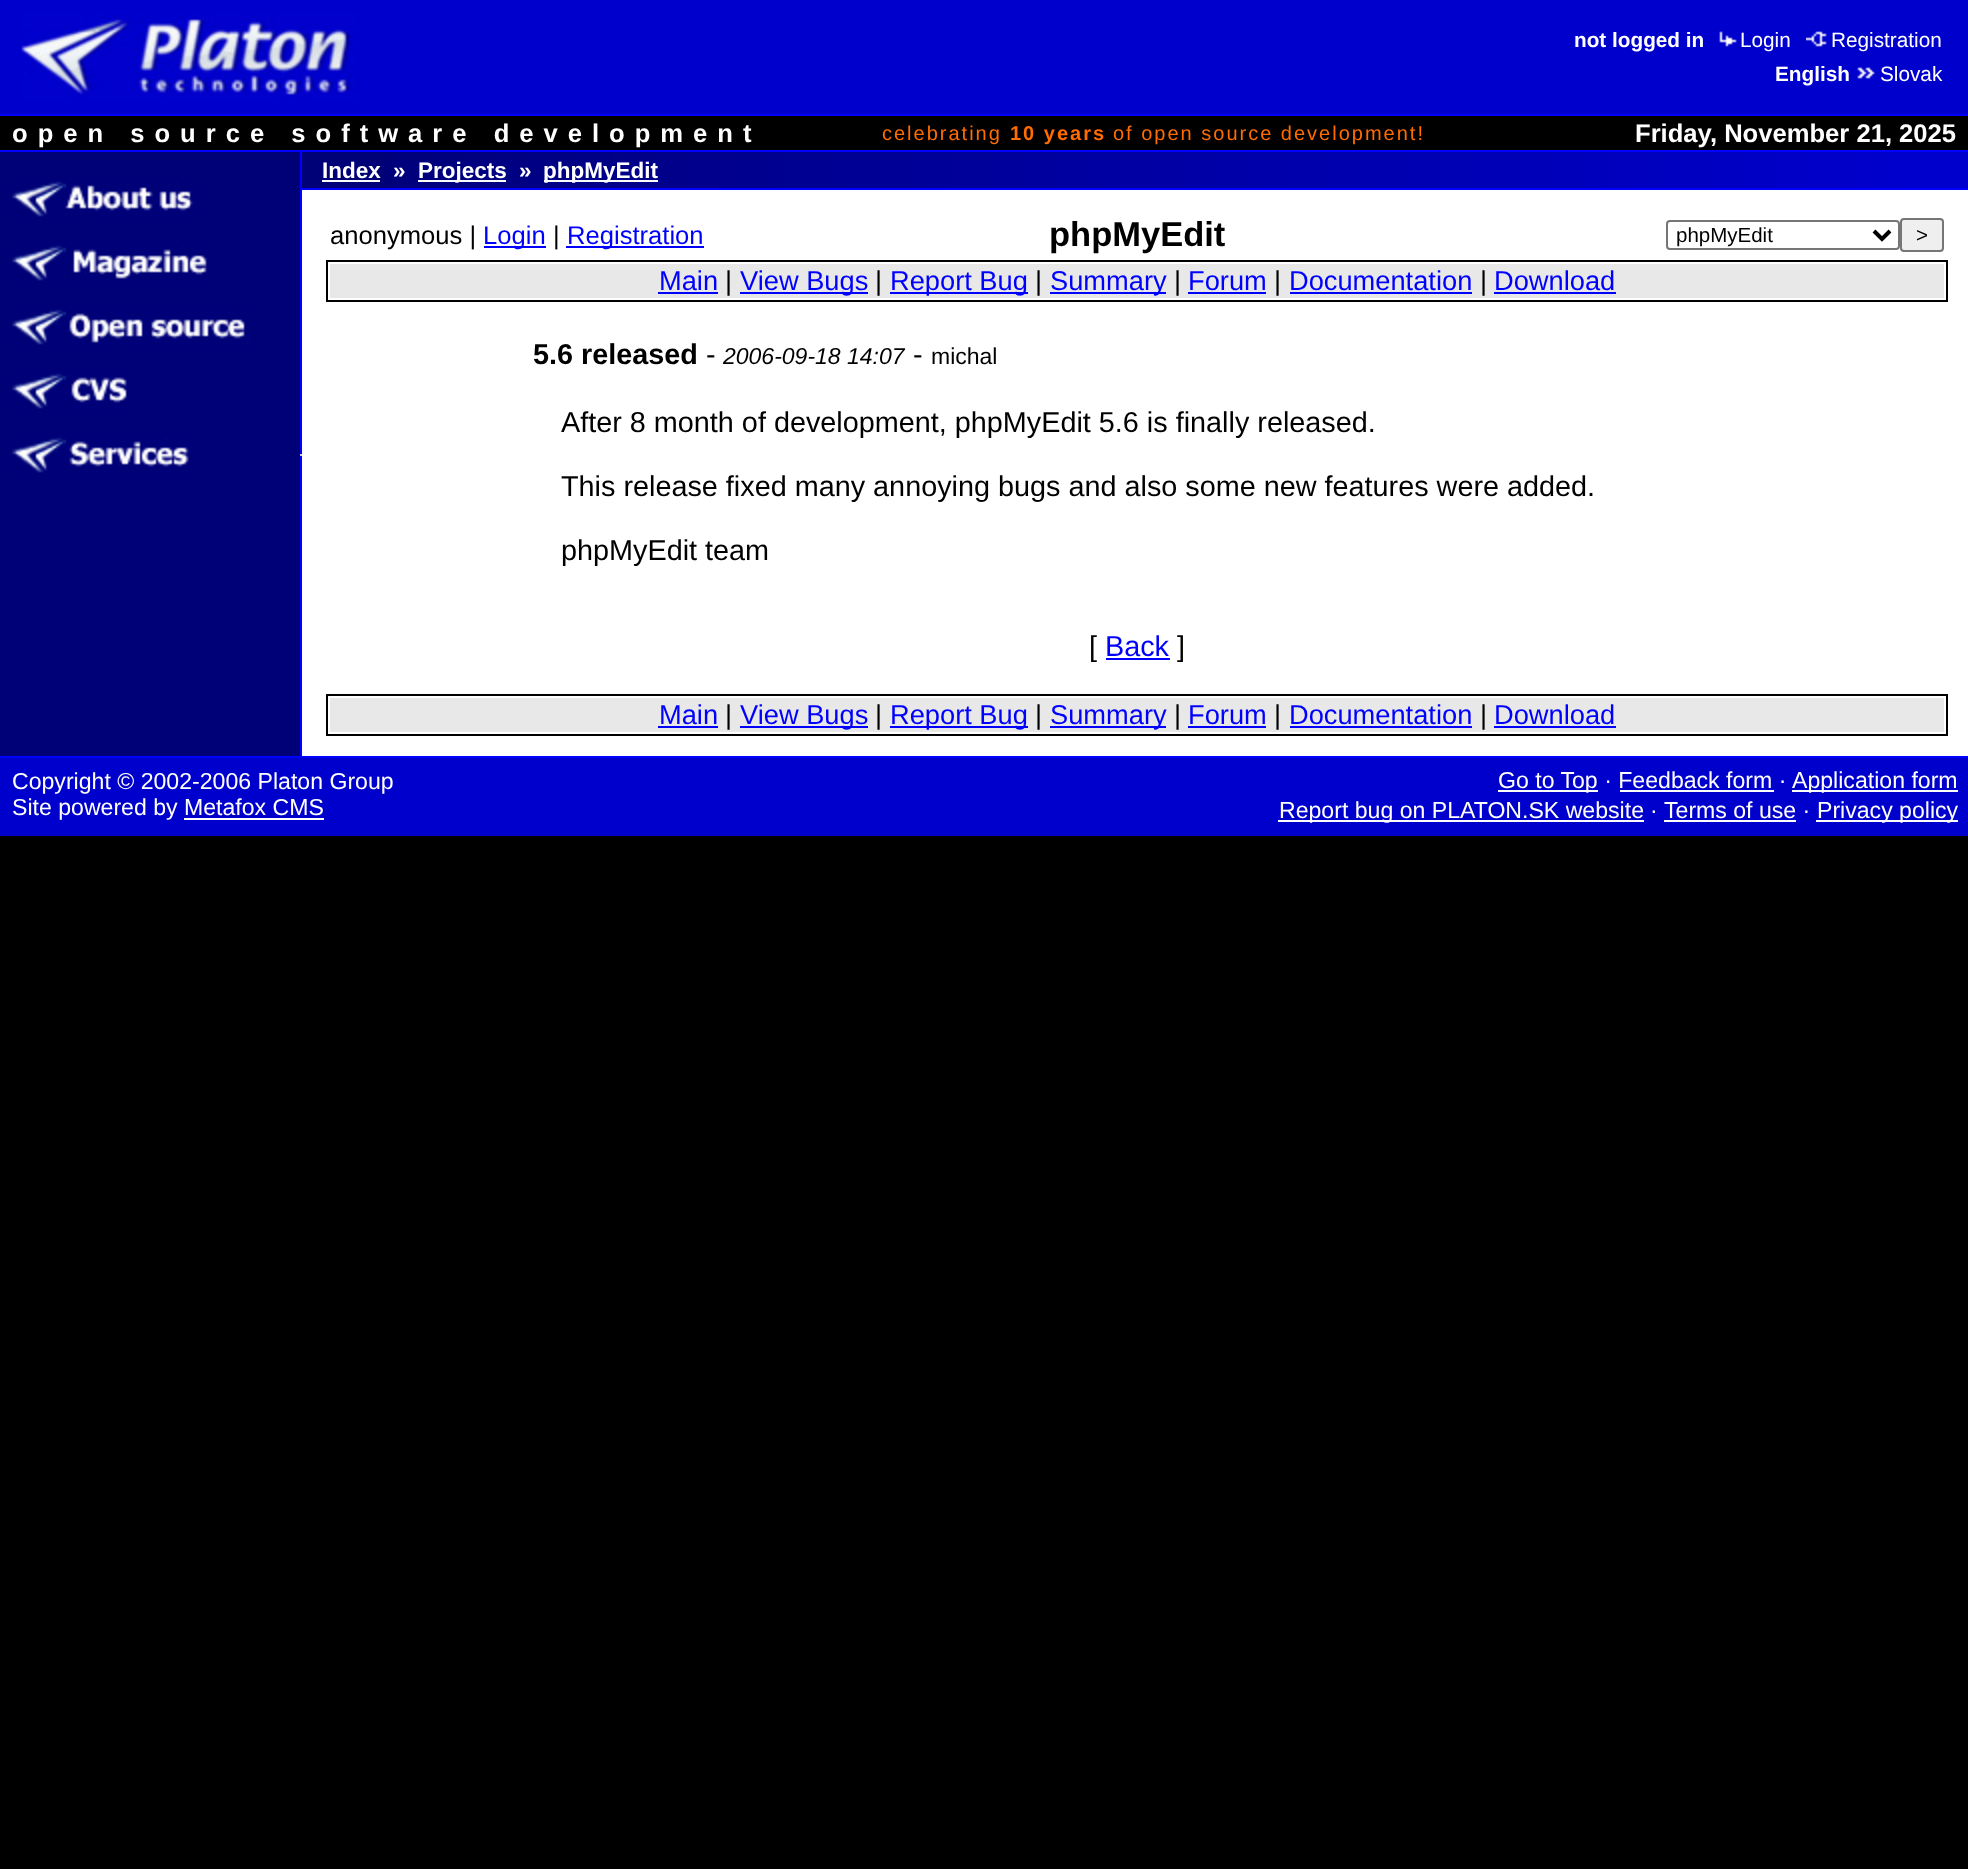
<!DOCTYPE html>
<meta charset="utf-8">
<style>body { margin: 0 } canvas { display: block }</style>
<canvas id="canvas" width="1968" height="1869"></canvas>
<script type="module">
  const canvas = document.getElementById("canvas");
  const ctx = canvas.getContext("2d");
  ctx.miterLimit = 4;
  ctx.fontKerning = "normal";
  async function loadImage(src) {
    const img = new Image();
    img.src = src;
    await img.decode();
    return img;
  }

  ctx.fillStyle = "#000000";
  ctx.fillRect(0, 0, 1968, 1869);
  ctx.fillStyle = "#0000cc";
  ctx.fillRect(0, 0, 1968, 114);
  ctx.drawImage(await loadImage("img1.png"), 21, 12, 337, 90);
  ctx.font = "bold 20.75px Liberation Sans";
  ctx.fillStyle = "#ffffff";
  ctx.fillText("not logged in", 1574, 47);
  ctx.drawImage(await loadImage("img2.png"), 1719, 31, 18, 16);
  ctx.font = "20.75px Liberation Sans";
  ctx.fillText("Login", 1740, 47);
  ctx.drawImage(await loadImage("img3.png"), 1806, 31, 21, 16);
  ctx.fillText("Registration", 1831, 47);
  ctx.font = "bold 20.75px Liberation Sans";
  ctx.fillText("English", 1775, 81);
  ctx.drawImage(await loadImage("img4.png"), 1857, 67, 18, 12);
  ctx.font = "20.75px Liberation Sans";
  ctx.fillText("Slovak", 1880, 81);
  ctx.fillStyle = "#0000ff";
  ctx.fillRect(0, 114, 1968, 2);
  ctx.letterSpacing = "10px";
  ctx.font = "bold 25.6px Liberation Sans";
  ctx.fillStyle = "#ffffff";
  ctx.fillText("open source software development", 12, 142);
  ctx.letterSpacing = "2px";
  ctx.font = "20px Liberation Sans";
  ctx.fillStyle = "#ff6c00";
  ctx.fillText("celebrating", 882, 140);
  ctx.font = "bold 20px Liberation Sans";
  ctx.fillText("10 years", 1010, 140);
  ctx.font = "20px Liberation Sans";
  ctx.fillText("of open source development!", 1113, 140);
  ctx.letterSpacing = "0px";
  ctx.font = "bold 25.6px Liberation Sans";
  ctx.fillStyle = "#ffffff";
  ctx.fillText("Friday, November 21, 2025", 1635, 142);
  ctx.fillStyle = "#0000ff";
  ctx.fillRect(0, 150, 1968, 2);
  ctx.fillStyle = "#000077";
  ctx.fillRect(0, 152, 300, 604);
  ctx.drawImage(await loadImage("img5.png"), 11, 181, 182, 36);
  ctx.drawImage(await loadImage("img6.png"), 11, 245, 196, 36);
  ctx.drawImage(await loadImage("img7.png"), 11, 309, 239, 36);
  ctx.drawImage(await loadImage("img8.png"), 11, 373, 116, 36);
  ctx.drawImage(await loadImage("img9.png"), 11, 437, 178, 36);
  ctx.fillStyle = "#0000ff";
  ctx.fillRect(300, 152, 2, 604);
  ctx.fillStyle = "#cdcdcd";
  ctx.fillRect(300, 454, 2, 2);
  ctx.fillStyle = "#ffffff";
  ctx.fillRect(302, 190, 1666, 566);
  ctx.fillStyle = "#000077";
  ctx.fillRect(302, 152, 87, 36);
  ctx.drawImage(await loadImage("img10.png"), 389, 152, 1579, 36);
  ctx.font = "bold 22.5px Liberation Sans";
  ctx.fillStyle = "#ffffff";
  ctx.fillText("Index", 322, 178);
  ctx.fillRect(322, 180, 58, 2);
  ctx.fillText("»", 393, 178);
  ctx.fillRect(418, 180, 88, 2);
  ctx.fillText("Projects", 418, 178);
  ctx.fillText("»", 519, 178);
  ctx.fillRect(544, 180, 114, 2);
  ctx.fillText("phpMyEdit", 543, 178);
  ctx.fillStyle = "#0000ff";
  ctx.fillRect(302, 188, 1666, 2);
  ctx.font = "25.6px Liberation Sans";
  ctx.fillStyle = "#000000";
  ctx.fillText("anonymous |", 330, 244);
  ctx.fillStyle = "#0000ff";
  ctx.fillRect(484, 246, 62, 2);
  ctx.fillText("Login", 483, 244);
  ctx.fillStyle = "#000000";
  ctx.fillText("|", 553, 244);
  ctx.fillStyle = "#0000ff";
  ctx.fillRect(566, 246, 138, 2);
  ctx.fillText("Registration", 567, 244);
  ctx.font = "bold 34.5px Liberation Sans";
  ctx.fillStyle = "#000000";
  ctx.fillText("phpMyEdit", 1049, 246);
  ctx.beginPath();
  ctx.roundRect(1667, 221, 232, 28, 3);
  ctx.strokeStyle = "#767676";
  ctx.lineWidth = 2;
  ctx.stroke();
  ctx.beginPath();
  ctx.moveTo(1874, 231);
  ctx.lineTo(1882, 239);
  ctx.lineTo(1890, 231);
  ctx.strokeStyle = "#000000";
  ctx.lineWidth = 4;
  ctx.stroke();
  ctx.font = "20.5px Liberation Sans";
  ctx.fillText("phpMyEdit", 1676, 242);
  ctx.fillStyle = "#efefef";
  ctx.beginPath();
  ctx.roundRect(1901, 219, 42, 32, 3);
  ctx.fill();
  ctx.strokeStyle = "#767676";
  ctx.lineWidth = 2;
  ctx.stroke();
  ctx.fillStyle = "#000000";
  ctx.fillText(">", 1916, 242);
  ctx.strokeStyle = "#000000";
  ctx.strokeRect(327, 261, 1620, 40);
  ctx.fillStyle = "#e8e8e8";
  ctx.fillRect(330, 264, 1614, 34);
  ctx.font = "27.25px Liberation Sans";
  ctx.fillStyle = "#0000ff";
  ctx.fillText("Main", 659, 290);
  ctx.fillRect(658, 292, 60, 2);
  ctx.fillStyle = "#000000";
  ctx.fillText("|", 725, 290);
  ctx.fillStyle = "#0000ff";
  ctx.fillRect(740, 292, 128, 2);
  ctx.fillText("View Bugs", 740, 290);
  ctx.fillStyle = "#000000";
  ctx.fillText("|", 875, 290);
  ctx.fillStyle = "#0000ff";
  ctx.fillRect(890, 292, 138, 2);
  ctx.fillText("Report Bug", 890, 290);
  ctx.fillStyle = "#000000";
  ctx.fillText("|", 1035, 290);
  ctx.fillStyle = "#0000ff";
  ctx.fillRect(1050, 292, 116, 2);
  ctx.fillText("Summary", 1050, 290);
  ctx.fillStyle = "#000000";
  ctx.fillText("|", 1174, 290);
  ctx.fillStyle = "#0000ff";
  ctx.fillText("Forum", 1188, 290);
  ctx.fillRect(1188, 292, 78, 2);
  ctx.fillStyle = "#000000";
  ctx.fillText("|", 1274, 290);
  ctx.fillStyle = "#0000ff";
  ctx.fillText("Documentation", 1289, 290);
  ctx.fillRect(1290, 292, 182, 2);
  ctx.fillStyle = "#000000";
  ctx.fillText("|", 1480, 290);
  ctx.fillStyle = "#0000ff";
  ctx.fillText("Download", 1494, 290);
  ctx.fillRect(1494, 292, 122, 2);
  ctx.font = "bold 28.8px Liberation Sans";
  ctx.fillStyle = "#000000";
  ctx.fillText("5.6 released", 533, 364);
  ctx.font = "28.8px Liberation Sans";
  ctx.fillText("-", 706, 364);
  ctx.font = "italic 23px Liberation Sans";
  ctx.fillText("2006-09-18 14:07", 723, 364);
  ctx.font = "28.8px Liberation Sans";
  ctx.fillText("-", 913, 364);
  ctx.font = "23px Liberation Sans";
  ctx.fillText("michal", 931, 364);
  ctx.font = "28.8px Liberation Sans";
  ctx.fillText("After 8 month of development, phpMyEdit 5.6 is finally released.", 561, 432);
  ctx.fillText("This release fixed many annoying bugs and also some new features were added.", 561, 496);
  ctx.fillText("phpMyEdit team", 561, 560);
  ctx.fillText("[", 1089, 656);
  ctx.fillStyle = "#0000ff";
  ctx.fillText("Back", 1105, 656);
  ctx.fillRect(1106, 658, 64, 2);
  ctx.fillStyle = "#000000";
  ctx.fillText("]", 1177, 656);
  ctx.strokeRect(327, 695, 1620, 40);
  ctx.fillStyle = "#e8e8e8";
  ctx.fillRect(330, 698, 1614, 34);
  ctx.font = "27.25px Liberation Sans";
  ctx.fillStyle = "#0000ff";
  ctx.fillText("Main", 659, 724);
  ctx.fillRect(658, 726, 60, 2);
  ctx.fillStyle = "#000000";
  ctx.fillText("|", 725, 724);
  ctx.fillStyle = "#0000ff";
  ctx.fillRect(740, 726, 128, 2);
  ctx.fillText("View Bugs", 740, 724);
  ctx.fillStyle = "#000000";
  ctx.fillText("|", 875, 724);
  ctx.fillStyle = "#0000ff";
  ctx.fillRect(890, 726, 138, 2);
  ctx.fillText("Report Bug", 890, 724);
  ctx.fillStyle = "#000000";
  ctx.fillText("|", 1035, 724);
  ctx.fillStyle = "#0000ff";
  ctx.fillRect(1050, 726, 116, 2);
  ctx.fillText("Summary", 1050, 724);
  ctx.fillStyle = "#000000";
  ctx.fillText("|", 1174, 724);
  ctx.fillStyle = "#0000ff";
  ctx.fillText("Forum", 1188, 724);
  ctx.fillRect(1188, 726, 78, 2);
  ctx.fillStyle = "#000000";
  ctx.fillText("|", 1274, 724);
  ctx.fillStyle = "#0000ff";
  ctx.fillText("Documentation", 1289, 724);
  ctx.fillRect(1290, 726, 182, 2);
  ctx.fillStyle = "#000000";
  ctx.fillText("|", 1480, 724);
  ctx.fillStyle = "#0000ff";
  ctx.fillText("Download", 1494, 724);
  ctx.fillRect(1494, 726, 122, 2);
  ctx.fillStyle = "#0000cc";
  ctx.fillRect(0, 758, 1968, 78);
  ctx.fillStyle = "#0000ff";
  ctx.fillRect(0, 756, 1968, 2);
  ctx.font = "23.1px Liberation Sans";
  ctx.fillStyle = "#ffffff";
  ctx.fillText("Copyright © 2002-2006 Platon Group", 12, 789);
  ctx.fillText("Site powered by Metafox CMS", 12, 815);
  ctx.fillRect(184, 818, 140, 2);
  ctx.fillRect(1498, 790, 100, 2);
  ctx.fillText("Go to Top · Feedback form ·", 1498, 788);
  ctx.fillRect(1792, 790, 166, 2);
  ctx.fillText("Application form", 1792, 788);
  ctx.fillRect(1620, 790, 154, 2);
  ctx.fillRect(1278, 820, 366, 2);
  ctx.fillText("Report bug on PLATON.SK website", 1279, 818);
  ctx.fillText("·", 1650, 818);
  ctx.fillText("Terms of use ·", 1664, 818);
  ctx.fillRect(1664, 820, 132, 2);
  ctx.fillRect(1816, 820, 142, 2);
  ctx.fillText("Privacy policy", 1817, 818);
</script>
